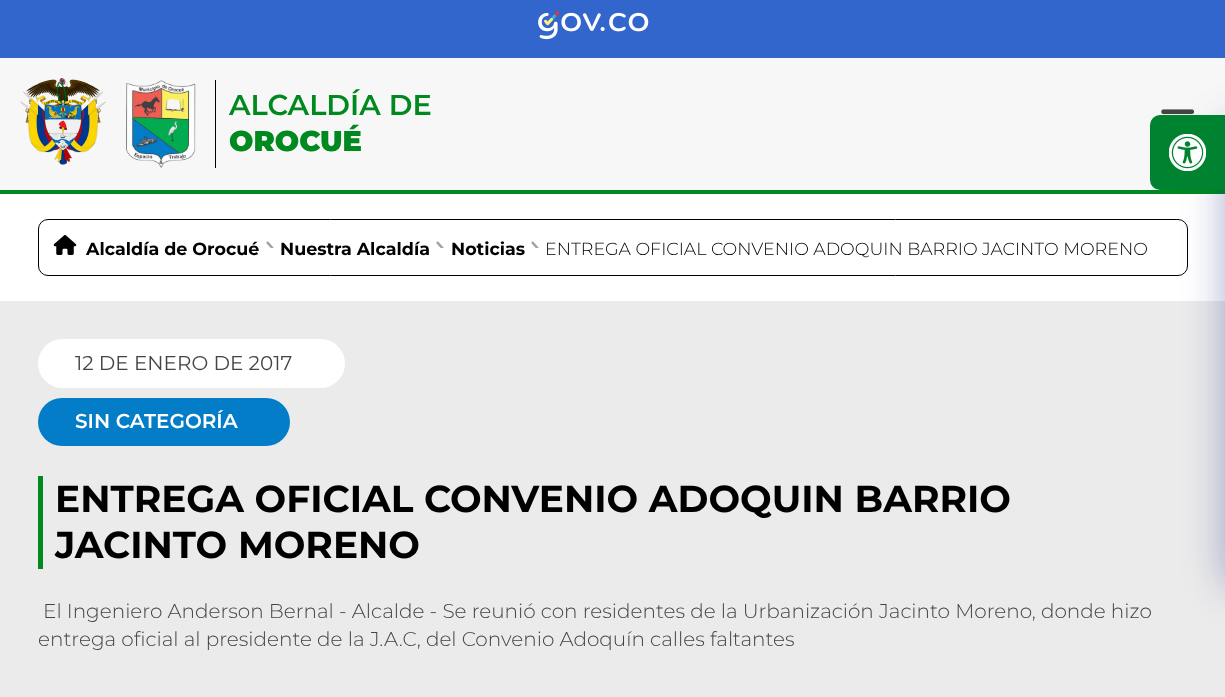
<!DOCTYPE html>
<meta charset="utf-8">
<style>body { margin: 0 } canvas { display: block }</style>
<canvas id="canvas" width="1225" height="697"></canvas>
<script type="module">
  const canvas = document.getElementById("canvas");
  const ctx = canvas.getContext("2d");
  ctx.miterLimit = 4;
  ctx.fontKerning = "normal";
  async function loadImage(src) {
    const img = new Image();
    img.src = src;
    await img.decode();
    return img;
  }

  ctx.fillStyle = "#ffffff";
  ctx.fillRect(0, 0, 1225, 697);
  ctx.fillStyle = "#3366cc";
  ctx.fillRect(0, 0, 1225, 58);
  ctx.drawImage(await loadImage("img1.png"), 538, 11, 111, 29);
  ctx.fillStyle = "#f7f7f7";
  ctx.fillRect(0, 58, 1225, 132);
  ctx.fillStyle = "#00891e";
  ctx.fillRect(0, 190, 1225, 4);
  ctx.drawImage(await loadImage("img2.png"), 20, 78, 86, 87);
  ctx.drawImage(await loadImage("img3.png"), 126, 80, 70, 88);
  ctx.fillStyle = "#000000";
  ctx.fillRect(215, 80, 1, 88);
  ctx.font = "600 28.75px Montserrat";
  ctx.fillStyle = "#00891e";
  ctx.fillText("ALCALDÍA DE", 229, 115);
  ctx.font = "900 28.75px Montserrat";
  ctx.fillText("OROCUÉ", 229, 151);
  ctx.drawImage(await loadImage("img4.png"), 1161, 109, 34, 6);
  ctx.beginPath();
  ctx.roundRect(38.5, 219.5, 1149, 56, 9.5);
  ctx.strokeStyle = "#000000";
  ctx.stroke();
  ctx.drawImage(await loadImage("img5.png"), 53, 235, 24, 20);
  ctx.font = "bold 17.5px Montserrat";
  ctx.fillStyle = "#000000";
  ctx.fillText("Alcaldía de Orocué", 86, 255);
  ctx.drawImage(await loadImage("img6.png"), 266, 241, 8, 7);
  ctx.fillText("Nuestra Alcaldía", 280, 255);
  ctx.drawImage(await loadImage("img6.png"), 436, 241, 8, 7);
  ctx.fillText("Noticias", 451, 255);
  ctx.drawImage(await loadImage("img6.png"), 531, 241, 8, 7);
  ctx.font = "300 17.5px Montserrat";
  ctx.fillText("ENTREGA OFICIAL CONVENIO ADOQUIN BARRIO JACINTO MORENO", 545, 255);
  ctx.fillStyle = "#ebebeb";
  ctx.fillRect(0, 301, 1225, 396);
  ctx.fillStyle = "#ffffff";
  ctx.beginPath();
  ctx.roundRect(38, 339, 307, 49, 24.5);
  ctx.fill();
  ctx.font = "20px Montserrat";
  ctx.fillStyle = "#444444";
  ctx.fillText("12 DE ENERO DE 2017", 75, 370);
  ctx.fillStyle = "#037dc8";
  ctx.beginPath();
  ctx.roundRect(38, 398, 252, 48, 24);
  ctx.fill();
  ctx.font = "600 20px Montserrat";
  ctx.fillStyle = "#ffffff";
  ctx.fillText("SIN CATEGORÍA", 75, 428);
  ctx.fillStyle = "#00891e";
  ctx.fillRect(38, 476, 5, 93);
  ctx.font = "bold 37.5px Montserrat";
  ctx.fillStyle = "#000000";
  ctx.fillText("ENTREGA OFICIAL CONVENIO ADOQUIN BARRIO", 55, 512);
  ctx.fillText("JACINTO MORENO", 55, 558);
  ctx.font = "300 20px Montserrat";
  ctx.fillStyle = "#444444";
  ctx.fillText("El Ingeniero Anderson Bernal - Alcalde - Se reunió con residentes de la Urbanización Jacinto Moreno, donde hizo", 43, 618);
  ctx.fillText("entrega oficial al presidente de la J.A.C, del Convenio Adoquín calles faltantes", 38, 646);
  ctx.fillStyle = "rgba(31, 38, 135, 0.37)";
  ctx.filter = "blur(20px)";
  ctx.beginPath();
  ctx.roundRect(1225, 125, 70, 460, 10);
  ctx.fill();
  ctx.filter = "none";
  ctx.fillStyle = "#008330";
  ctx.beginPath();
  ctx.roundRect(1150, 115, 75, 75, [10, 0, 0, 10]);
  ctx.fill();
  ctx.drawImage(await loadImage("img7.png"), 1169, 134, 37, 37);
</script>
